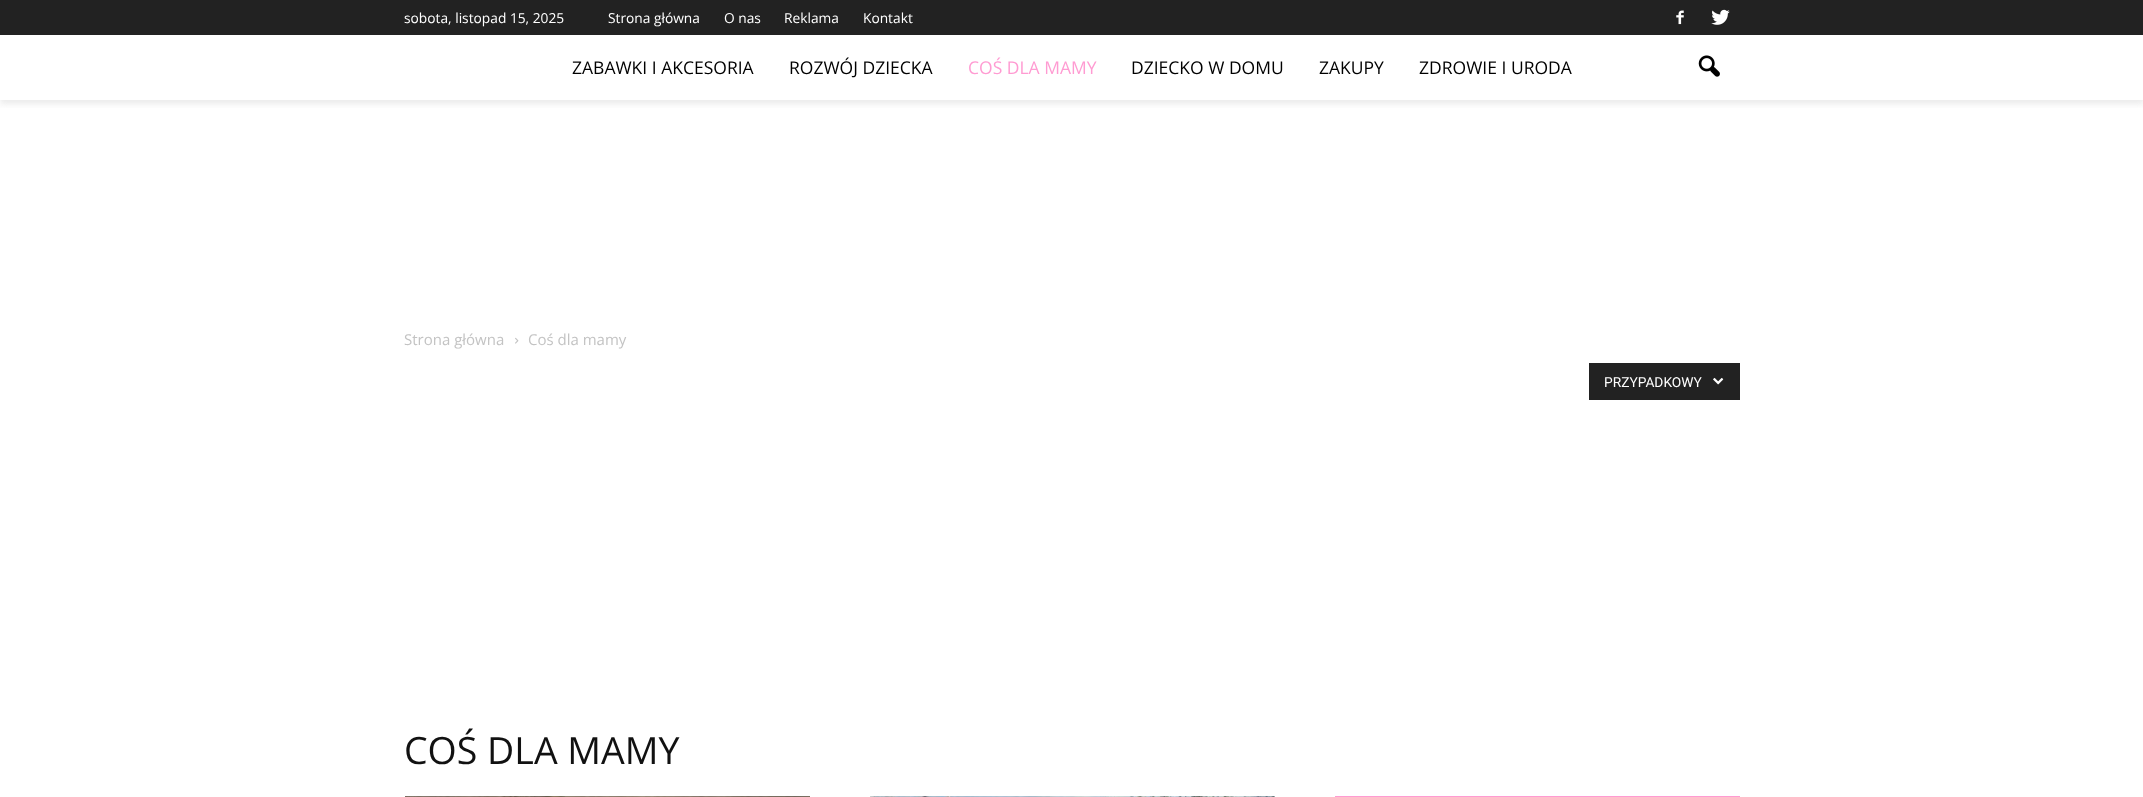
<!DOCTYPE html>
<meta charset="utf-8">
<style>body { margin: 0 } canvas { display: block }</style>
<canvas id="canvas" width="2143" height="797"></canvas>
<script type="module">
  const canvas = document.getElementById("canvas");
  const ctx = canvas.getContext("2d");
  ctx.miterLimit = 4;
  ctx.fontKerning = "normal";
  async function loadImage(src) {
    const img = new Image();
    img.src = src;
    await img.decode();
    return img;
  }

  ctx.fillStyle = "#ffffff";
  ctx.fillRect(0, 0, 2143, 797);
  ctx.fillStyle = "#222222";
  ctx.fillRect(0, 0, 2143, 35);
  ctx.font = "13.75px Open Sans";
  ctx.fillStyle = "#ffffff";
  ctx.fillText("sobota, listopad 15, 2025", 404, 23);
  ctx.fillText("Strona główna", 608, 23);
  ctx.fillText("O nas", 724, 23);
  ctx.fillText("Reklama", 784, 23);
  ctx.fillText("Kontakt", 863, 23);
  ctx.drawImage(await loadImage("img1.png"), 1676, 10, 8, 15);
  ctx.drawImage(await loadImage("img2.png"), 1711, 9, 19, 16);
  ctx.font = "17.5px Open Sans";
  ctx.fillStyle = "#000000";
  ctx.fillText("ZABAWKI I AKCESORIA", 572, 74);
  ctx.fillText("ROZWÓJ DZIECKA", 789, 74);
  ctx.fillStyle = "#ff9bd2";
  ctx.fillText("COŚ DLA MAMY", 968, 74);
  ctx.fillStyle = "#000000";
  ctx.fillText("DZIECKO W DOMU", 1131, 74);
  ctx.fillText("ZAKUPY", 1319, 74);
  ctx.fillText("ZDROWIE I URODA", 1419, 74);
  ctx.drawImage(await loadImage("img3.png"), 1698, 55, 22, 22);
  ctx.save();
  ctx.beginPath();
  ctx.rect(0, 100, 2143, 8);
  ctx.clip();
  ctx.fillStyle = "rgba(190, 190, 190, 0.3)";
  ctx.filter = "blur(3px)";
  ctx.beginPath();
  ctx.rect(0, 89, 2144, 15);
  ctx.fill();
  ctx.filter = "none";
  ctx.restore();
  ctx.font = "15px Open Sans";
  ctx.fillStyle = "#c3c3c3";
  ctx.fillText("Strona główna", 404, 345);
  ctx.drawImage(await loadImage("img4.png"), 515, 337, 4, 7);
  ctx.fillText("Coś dla mamy", 528, 345);
  ctx.font = "37.5px Open Sans";
  ctx.fillStyle = "#111111";
  ctx.fillText("COŚ DLA MAMY", 404, 764);
  ctx.fillStyle = "#222222";
  ctx.fillRect(1589, 363, 151, 37);
  ctx.font = "13.75px Roboto";
  ctx.fillStyle = "#ffffff";
  ctx.fillText("PRZYPADKOWY", 1604, 387);
  ctx.drawImage(await loadImage("img5.png"), 1713, 377, 11, 8);
  ctx.drawImage(await loadImage("img6.png"), 405, 796, 405, 1);
  ctx.drawImage(await loadImage("img7.png"), 870, 796, 405, 1);
  ctx.strokeStyle = "#ff9bd2";
  ctx.strokeRect(1335.5, 796.5, 404, 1);
</script>
